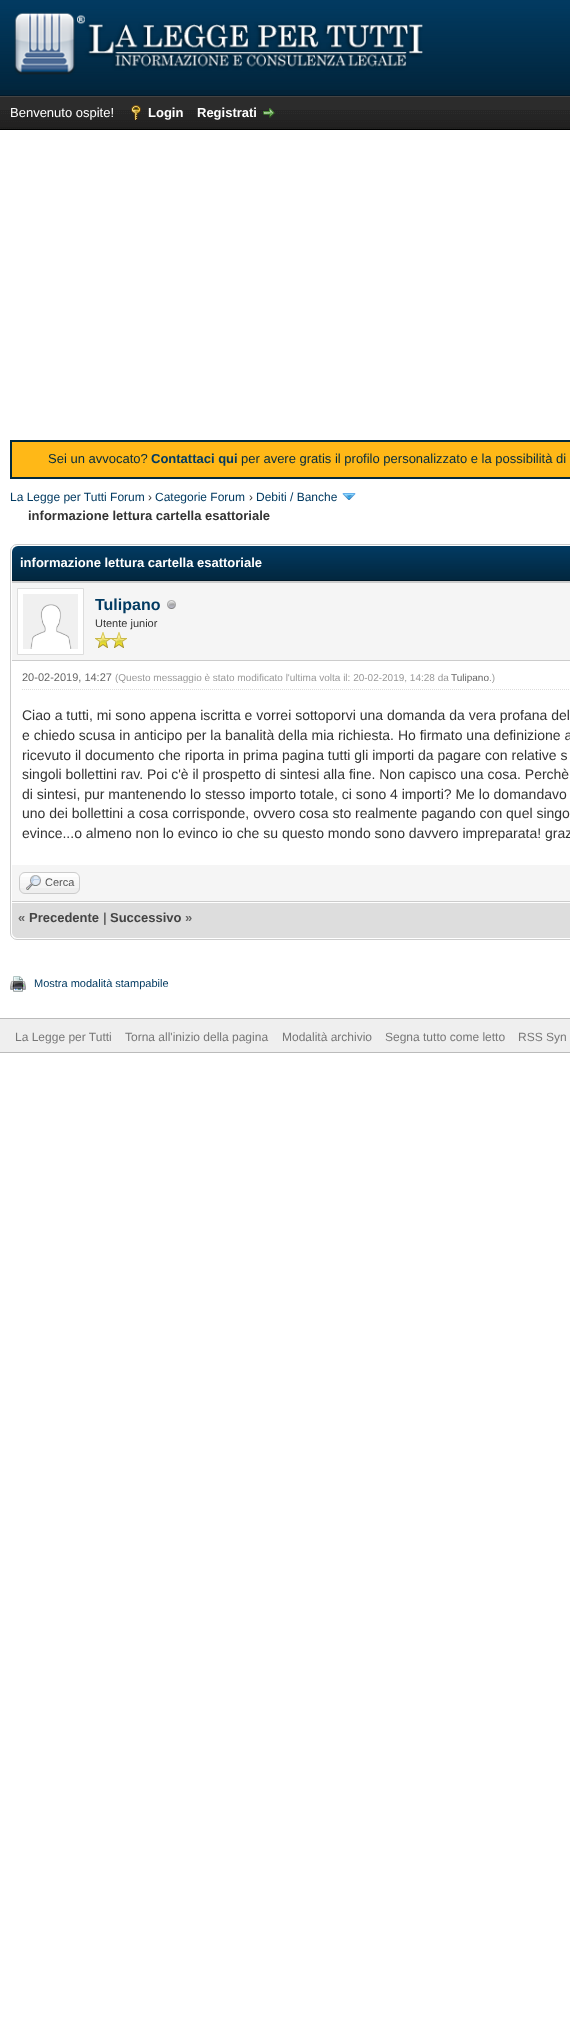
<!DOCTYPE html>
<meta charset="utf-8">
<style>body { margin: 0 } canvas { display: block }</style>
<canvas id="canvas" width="570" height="2022"></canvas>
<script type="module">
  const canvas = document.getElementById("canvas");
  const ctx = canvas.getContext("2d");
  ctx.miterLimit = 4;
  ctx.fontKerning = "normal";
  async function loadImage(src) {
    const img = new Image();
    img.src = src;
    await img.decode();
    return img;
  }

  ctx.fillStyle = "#ffffff";
  ctx.fillRect(0, 0, 570, 2022);
  ctx.fillStyle = "#022338";
  ctx.fillRect(0, 90, 570, 5);
  ctx.drawImage(await loadImage("img1.png"), 0, 0, 570, 90);
  ctx.fillStyle = "#011929";
  ctx.fillRect(0, 95, 570, 1);
  ctx.drawImage(await loadImage("img2.png"), 14, 12, 409, 63);
  ctx.drawImage(await loadImage("img3.png"), 0, 97, 570, 32);
  ctx.fillStyle = "#444444";
  ctx.fillRect(0, 96, 570, 1);
  ctx.fillStyle = "#000000";
  ctx.fillRect(0, 129, 570, 1);
  ctx.font = "13px Liberation Sans";
  ctx.fillStyle = "#ffffff";
  ctx.fillText("Benvenuto ospite!", 10, 117);
  ctx.drawImage(await loadImage("img4.png"), 131, 105, 10, 15);
  ctx.font = "bold 13px Liberation Sans";
  ctx.fillText("Login", 148, 117);
  ctx.fillText("Registrati", 197, 117);
  ctx.drawImage(await loadImage("img5.png"), 263, 108, 12, 10);
  ctx.fillStyle = "#ffb817";
  ctx.beginPath();
  ctx.rect(11, 441, 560, 37);
  ctx.fill();
  ctx.strokeStyle = "#012a3e";
  ctx.lineWidth = 2;
  ctx.stroke();
  ctx.font = "13px Liberation Sans";
  ctx.fillStyle = "#012a3e";
  ctx.fillText("Sei un avvocato?", 48, 463);
  ctx.font = "bold 13px Liberation Sans";
  ctx.fillStyle = "#023a61";
  ctx.fillText("Contattaci qui", 151, 463);
  ctx.font = "13px Liberation Sans";
  ctx.fillStyle = "#012a3e";
  ctx.fillText("per avere gratis il profilo personalizzato e la possibilità di", 241, 463);
  ctx.font = "12px Liberation Sans";
  ctx.fillStyle = "#023a61";
  ctx.fillText("La Legge per Tutti Forum", 10, 501);
  ctx.fillStyle = "#333333";
  ctx.fillText("›", 148, 501);
  ctx.fillStyle = "#023a61";
  ctx.fillText("Categorie Forum", 155, 501);
  ctx.fillStyle = "#333333";
  ctx.fillText("›", 249, 501);
  ctx.fillStyle = "#023a61";
  ctx.fillText("Debiti / Banche", 256, 501);
  ctx.drawImage(await loadImage("img6.png"), 342, 493, 14, 7);
  ctx.font = "bold 13px Liberation Sans";
  ctx.fillStyle = "#333333";
  ctx.fillText("informazione lettura cartella esattoriale", 28, 520);
  ctx.beginPath();
  ctx.roundRect(10.5, 544.5, 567, 395, 6.5);
  ctx.strokeStyle = "#cccccc";
  ctx.lineWidth = 1;
  ctx.stroke();
  ctx.drawImage(await loadImage("img7.png"), 12, 546, 558, 34);
  ctx.fillStyle = "#011929";
  ctx.fillRect(12, 580, 558, 1);
  ctx.fillStyle = "#ffffff";
  ctx.fillText("informazione lettura cartella esattoriale", 20, 567);
  ctx.fillStyle = "#f5f5f5";
  ctx.fillRect(12, 583, 558, 77);
  ctx.fillStyle = "#cccccc";
  ctx.fillRect(12, 581, 558, 2);
  ctx.fillRect(12, 660, 558, 1);
  ctx.fillStyle = "#ffffff";
  ctx.beginPath();
  ctx.rect(17.5, 588.5, 66, 66);
  ctx.fill();
  ctx.strokeStyle = "#dddddd";
  ctx.stroke();
  ctx.drawImage(await loadImage("img8.png"), 23, 594, 55, 55);
  ctx.font = "bold 16px Liberation Sans";
  ctx.fillStyle = "#023a61";
  ctx.fillText("Tulipano", 95, 610);
  ctx.drawImage(await loadImage("img9.png"), 167, 600, 9, 9);
  ctx.font = "11px Liberation Sans";
  ctx.fillStyle = "#333333";
  ctx.fillText("Utente junior", 95, 627);
  ctx.drawImage(await loadImage("img10.png"), 95, 632, 16, 16);
  ctx.drawImage(await loadImage("img10.png"), 111, 632, 16, 16);
  ctx.beginPath();
  ctx.moveTo(22, 689.5);
  ctx.lineTo(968, 689.5);
  ctx.setLineDash([1, 1]);
  ctx.stroke();
  ctx.fillStyle = "#666666";
  ctx.fillText("20-02-2019, 14:27", 22, 681);
  ctx.font = "10px Liberation Sans";
  ctx.fillStyle = "#999999";
  ctx.fillText("(Questo messaggio è stato modificato l'ultima volta il: 20-02-2019, 14:28 da", 115, 681);
  ctx.fillStyle = "#666666";
  ctx.fillText("Tulipano", 451, 681);
  ctx.fillStyle = "#999999";
  ctx.fillText(".)", 489, 681);
  ctx.font = "14px Liberation Sans";
  ctx.fillStyle = "#333333";
  ctx.fillText("Ciao a tutti, mi sono appena iscritta e vorrei sottoporvi una domanda da vera profana del", 22, 720);
  ctx.fillText("e chiedo scusa in anticipo per la banalità della mia richiesta. Ho firmato una definizione a", 22, 740);
  ctx.fillText("ricevuto il documento che riporta in prima pagina tutti gli importi da pagare con relative s", 22, 760);
  ctx.fillText("singoli bollettini rav. Poi c'è il prospetto di sintesi alla fine. Non capisco una cosa. Perchè", 22, 779);
  ctx.fillText("di sintesi, pur mantenendo lo stesso importo totale, ci sono 4 importi? Me lo domandavo", 22, 799);
  ctx.fillText("uno dei bollettini a cosa corrisponde, ovvero cosa sto realmente pagando con quel singo", 22, 818);
  ctx.fillText("evince...o almeno non lo evinco io che su questo mondo sono davvero impreparata! graz", 22, 838);
  ctx.fillStyle = "#f5f5f5";
  ctx.fillRect(12, 865, 558, 36);
  ctx.fillStyle = "#cccccc";
  ctx.fillRect(12, 901, 558, 1);
  ctx.fillStyle = "#eeeeee";
  ctx.beginPath();
  ctx.roundRect(19, 872, 61, 22, 6);
  ctx.fill();
  ctx.drawImage(await loadImage("img11.png"), 19, 873, 61, 15);
  ctx.beginPath();
  ctx.roundRect(19.5, 872.5, 60, 21, 5.5);
  ctx.strokeStyle = "#cccccc";
  ctx.setLineDash([]);
  ctx.stroke();
  ctx.drawImage(await loadImage("img12.png"), 26, 875, 15, 15);
  ctx.font = "11px Liberation Sans";
  ctx.fillStyle = "#555555";
  ctx.fillText("Cerca", 45, 886);
  ctx.fillStyle = "#dddddd";
  ctx.beginPath();
  ctx.moveTo(12, 902);
  ctx.lineTo(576, 902);
  ctx.lineTo(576, 932);
  ctx.bezierCurveTo(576, 935.5, 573.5, 938, 570, 938);
  ctx.lineTo(18, 938);
  ctx.bezierCurveTo(14.5, 938, 12, 935.5, 12, 932);
  ctx.closePath();
  ctx.fill();
  ctx.fillStyle = "#ffffff";
  ctx.fillRect(12, 902, 558, 1);
  ctx.font = "bold 13px Liberation Sans";
  ctx.fillStyle = "#666666";
  ctx.fillText("«", 18, 922);
  ctx.fillStyle = "#444444";
  ctx.fillText("Precedente", 29, 922);
  ctx.fillStyle = "#666666";
  ctx.fillText("|", 103, 922);
  ctx.fillStyle = "#444444";
  ctx.fillText("Successivo", 110, 922);
  ctx.fillStyle = "#666666";
  ctx.fillText("»", 185, 922);
  ctx.drawImage(await loadImage("img13.png"), 10, 976, 16, 16);
  ctx.font = "11px Liberation Sans";
  ctx.fillStyle = "#023a61";
  ctx.fillText("Mostra modalità stampabile", 34, 987);
  ctx.fillStyle = "#efefef";
  ctx.fillRect(0, 1019, 570, 33);
  ctx.fillStyle = "#bbbbbb";
  ctx.fillRect(0, 1018, 570, 1);
  ctx.fillRect(0, 1052, 570, 1);
  ctx.font = "12px Liberation Sans";
  ctx.fillStyle = "#777777";
  ctx.fillText("La Legge per Tutti", 15, 1041);
  ctx.fillText("Torna all'inizio della pagina", 125, 1041);
  ctx.fillText("Modalità archivio", 282, 1041);
  ctx.fillText("Segna tutto come letto", 385, 1041);
  ctx.fillText("RSS Syn", 518, 1041);
</script>
